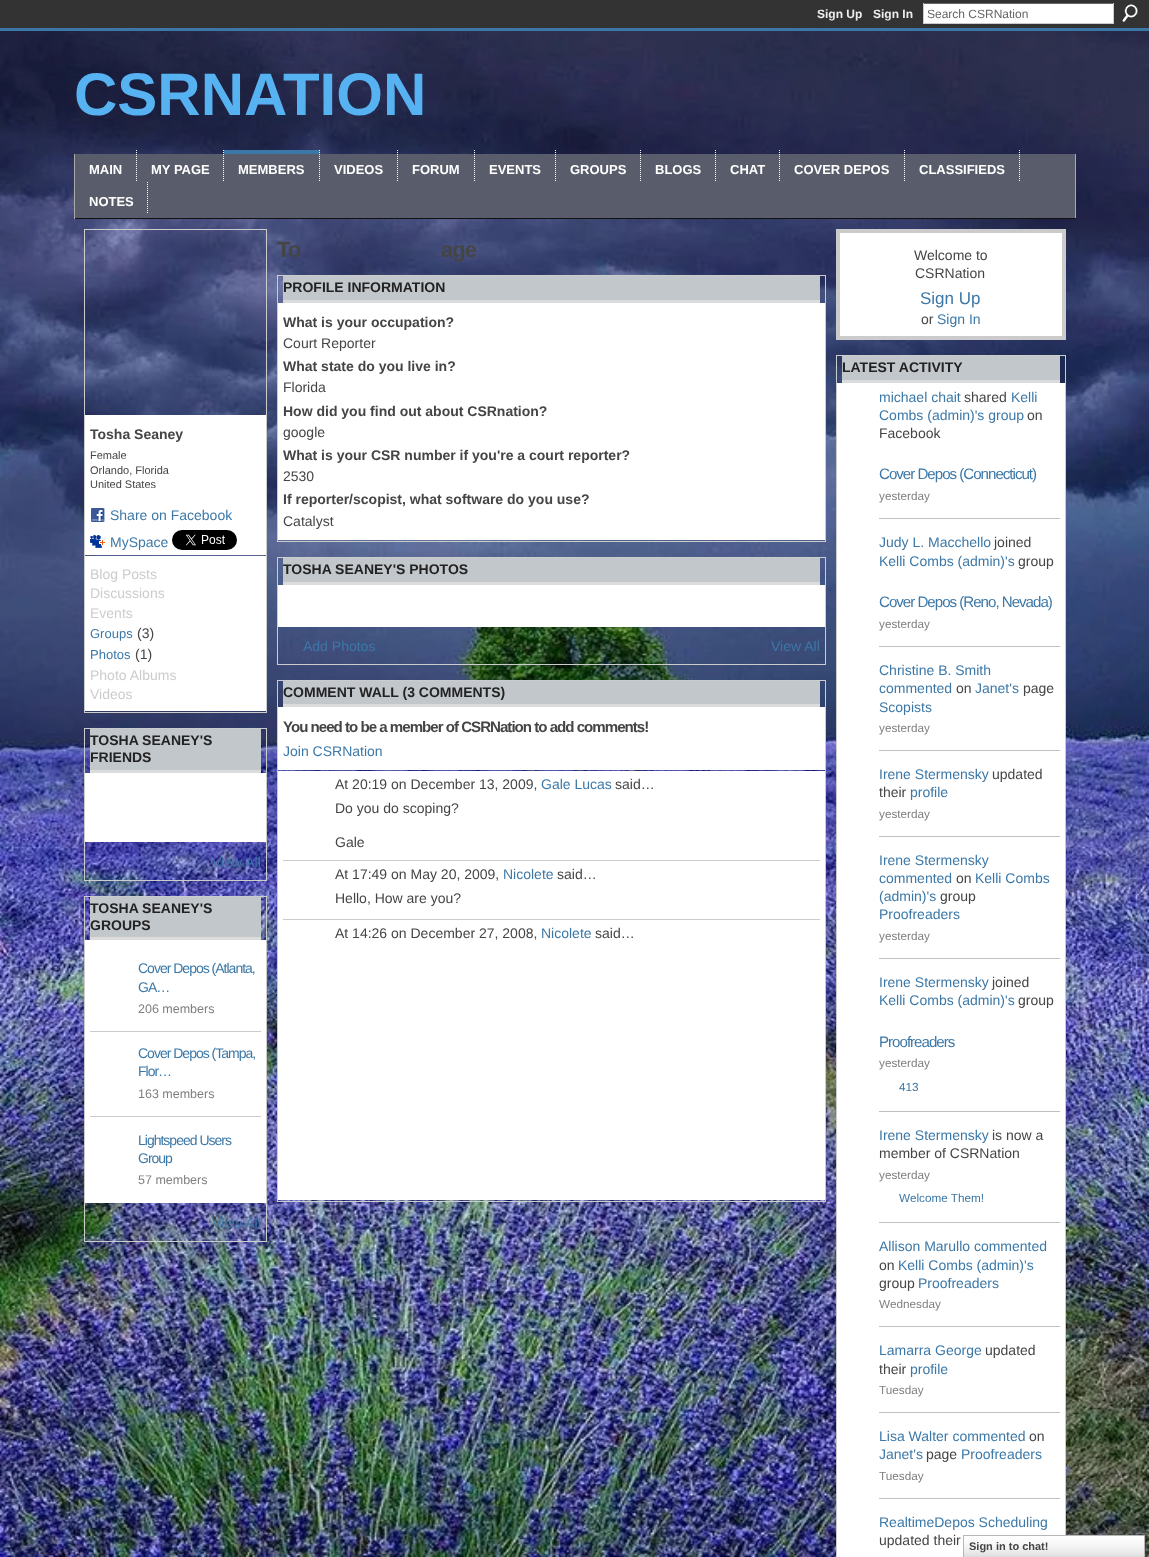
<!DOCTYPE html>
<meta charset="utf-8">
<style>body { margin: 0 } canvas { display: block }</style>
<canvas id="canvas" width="1149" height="1557"></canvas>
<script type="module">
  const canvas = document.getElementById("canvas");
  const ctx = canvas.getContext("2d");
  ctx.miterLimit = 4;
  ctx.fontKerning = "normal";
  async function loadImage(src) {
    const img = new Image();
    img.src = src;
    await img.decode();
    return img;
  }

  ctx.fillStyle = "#ffffff";
  ctx.fillRect(0, 0, 1149, 1557);
  ctx.drawImage(await loadImage("img1.png"), 0, 31, 1149, 1526);
  ctx.fillStyle = "#333333";
  ctx.fillRect(0, 0, 1149, 28);
  ctx.font = "bold 12px Liberation Sans";
  ctx.fillStyle = "#eeeeee";
  ctx.fillText("Sign Up", 817, 18);
  ctx.fillText("Sign In", 873, 18);
  ctx.fillStyle = "#ffffff";
  ctx.fillRect(924, 4, 189, 19);
  ctx.fillStyle = "#666666";
  ctx.fillRect(923, 3, 191, 1);
  ctx.fillStyle = "#cccccc";
  ctx.fillRect(1113, 3, 1, 21);
  ctx.fillRect(923, 23, 191, 1);
  ctx.fillRect(923, 3, 1, 21);
  ctx.font = "12px Liberation Sans";
  ctx.fillStyle = "#666666";
  ctx.fillText("Search CSRNation", 927, 18);
  ctx.drawImage(await loadImage("img2.png"), 1122, 4, 16, 18);
  ctx.fillStyle = "#3c78a7";
  ctx.fillRect(0, 28, 1149, 3);
  ctx.font = "bold 60px Liberation Sans";
  ctx.fillStyle = "#57b2f2";
  ctx.fillText("CSRNATION", 74, 115);
  ctx.fillStyle = "#595d6b";
  ctx.fillRect(75, 154, 1000, 64);
  ctx.fillStyle = "#aaaaaa";
  ctx.fillRect(1075, 154, 1, 65);
  ctx.fillStyle = "#111111";
  ctx.fillRect(74, 218, 1002, 1);
  ctx.fillStyle = "#aaaaaa";
  ctx.fillRect(74, 154, 1, 65);
  ctx.beginPath();
  ctx.moveTo(136.5, 150);
  ctx.lineTo(136.5, 182);
  ctx.strokeStyle = "#ffffff";
  ctx.setLineDash([1, 1]);
  ctx.stroke();
  ctx.font = "bold 13px Liberation Sans";
  ctx.fillStyle = "#ffffff";
  ctx.fillText("MAIN", 89, 174);
  ctx.beginPath();
  ctx.moveTo(223.5, 150);
  ctx.lineTo(223.5, 182);
  ctx.stroke();
  ctx.fillText("MY PAGE", 151, 174);
  ctx.fillStyle = "#3c78a7";
  ctx.beginPath();
  ctx.moveTo(224, 150);
  ctx.lineTo(320, 150);
  ctx.lineTo(319, 154);
  ctx.lineTo(224, 154);
  ctx.closePath();
  ctx.fill();
  ctx.beginPath();
  ctx.moveTo(319.5, 150);
  ctx.lineTo(319.5, 182);
  ctx.stroke();
  ctx.fillStyle = "#ffffff";
  ctx.fillText("MEMBERS", 238, 174);
  ctx.beginPath();
  ctx.moveTo(397.5, 150);
  ctx.lineTo(397.5, 182);
  ctx.stroke();
  ctx.fillText("VIDEOS", 334, 174);
  ctx.beginPath();
  ctx.moveTo(474.5, 150);
  ctx.lineTo(474.5, 182);
  ctx.stroke();
  ctx.fillText("FORUM", 412, 174);
  ctx.beginPath();
  ctx.moveTo(555.5, 150);
  ctx.lineTo(555.5, 182);
  ctx.stroke();
  ctx.fillText("EVENTS", 489, 174);
  ctx.beginPath();
  ctx.moveTo(640.5, 150);
  ctx.lineTo(640.5, 182);
  ctx.stroke();
  ctx.fillText("GROUPS", 570, 174);
  ctx.beginPath();
  ctx.moveTo(715.5, 150);
  ctx.lineTo(715.5, 182);
  ctx.stroke();
  ctx.fillText("BLOGS", 655, 174);
  ctx.beginPath();
  ctx.moveTo(779.5, 150);
  ctx.lineTo(779.5, 182);
  ctx.stroke();
  ctx.fillText("CHAT", 730, 174);
  ctx.beginPath();
  ctx.moveTo(904.5, 150);
  ctx.lineTo(904.5, 182);
  ctx.stroke();
  ctx.fillText("COVER DEPOS", 794, 174);
  ctx.beginPath();
  ctx.moveTo(1019.5, 150);
  ctx.lineTo(1019.5, 182);
  ctx.stroke();
  ctx.fillText("CLASSIFIEDS", 919, 174);
  ctx.beginPath();
  ctx.moveTo(147.5, 182);
  ctx.lineTo(147.5, 214);
  ctx.stroke();
  ctx.fillText("NOTES", 89, 206);
  ctx.strokeStyle = "#cccccc";
  ctx.setLineDash([]);
  ctx.strokeRect(84.5, 229.5, 182, 483);
  ctx.fillRect(85, 415, 181, 140);
  ctx.font = "bold 14px Liberation Sans";
  ctx.fillStyle = "#454545";
  ctx.fillText("Tosha Seaney", 90, 439);
  ctx.font = "11px Liberation Sans";
  ctx.fillText("Female", 90, 459);
  ctx.fillText("Orlando, Florida", 90, 474);
  ctx.fillText("United States", 90, 488);
  ctx.drawImage(await loadImage("img3.png"), 91, 508, 14, 14);
  ctx.font = "14px Liberation Sans";
  ctx.fillStyle = "#3c78a7";
  ctx.fillText("Share on Facebook", 110, 520);
  ctx.drawImage(await loadImage("img4.png"), 90, 535, 15, 13);
  ctx.fillText("MySpace", 110, 547);
  ctx.drawImage(await loadImage("img5.png"), 172, 530, 65, 20);
  ctx.fillStyle = "#ffffff";
  ctx.fillRect(85, 556, 181, 155);
  ctx.fillStyle = "#cccccc";
  ctx.fillText("Blog Posts", 90, 579);
  ctx.fillText("Discussions", 90, 598);
  ctx.fillText("Events", 90, 618);
  ctx.font = "13px Liberation Sans";
  ctx.fillStyle = "#3c78a7";
  ctx.fillText("Groups", 90, 638);
  ctx.font = "14px Liberation Sans";
  ctx.fillStyle = "#454545";
  ctx.fillText("(3)", 137, 638);
  ctx.font = "13px Liberation Sans";
  ctx.fillStyle = "#3c78a7";
  ctx.fillText("Photos", 90, 659);
  ctx.font = "14px Liberation Sans";
  ctx.fillStyle = "#454545";
  ctx.fillText("(1)", 135, 659);
  ctx.fillStyle = "#cccccc";
  ctx.fillText("Photo Albums", 90, 680);
  ctx.fillText("Videos", 90, 699);
  ctx.strokeRect(84.5, 728.5, 182, 152);
  ctx.fillStyle = "#c2c7cc";
  ctx.fillRect(90, 729, 171, 41);
  ctx.fillStyle = "#dcdcdc";
  ctx.fillRect(90, 770, 171, 3);
  ctx.font = "bold 14px Liberation Sans";
  ctx.fillStyle = "#222222";
  ctx.fillText("TOSHA SEANEY'S", 90, 745);
  ctx.fillText("FRIENDS", 90, 762);
  ctx.fillStyle = "#ffffff";
  ctx.fillRect(85, 773, 181, 69);
  ctx.font = "14px Liberation Sans";
  ctx.fillStyle = "#3c78a7";
  ctx.fillText("View All", 212, 867);
  ctx.strokeRect(84.5, 896.5, 182, 345);
  ctx.fillStyle = "#c2c7cc";
  ctx.fillRect(90, 897, 171, 40);
  ctx.fillStyle = "#dcdcdc";
  ctx.fillRect(90, 937, 171, 3);
  ctx.font = "bold 14px Liberation Sans";
  ctx.fillStyle = "#222222";
  ctx.fillText("TOSHA SEANEY'S", 90, 913);
  ctx.fillText("GROUPS", 90, 930);
  ctx.fillStyle = "#ffffff";
  ctx.fillRect(85, 940, 181, 263);
  ctx.fillStyle = "#cbcbcb";
  ctx.fillRect(90, 1031, 171, 1);
  ctx.letterSpacing = "-1px";
  ctx.font = "14px Liberation Sans";
  ctx.fillStyle = "#3c78a7";
  ctx.fillText("Cover Depos (Atlanta,", 138, 973);
  ctx.fillText("GA…", 138, 992);
  ctx.letterSpacing = "0px";
  ctx.font = "12.5px Liberation Sans";
  ctx.fillStyle = "#7f7f7f";
  ctx.fillText("206 members", 138, 1013);
  ctx.fillStyle = "#cbcbcb";
  ctx.fillRect(90, 1116, 171, 1);
  ctx.letterSpacing = "-1px";
  ctx.font = "14px Liberation Sans";
  ctx.fillStyle = "#3c78a7";
  ctx.fillText("Cover Depos (Tampa,", 138, 1058);
  ctx.fillText("Flor…", 138, 1076);
  ctx.letterSpacing = "0px";
  ctx.font = "12.5px Liberation Sans";
  ctx.fillStyle = "#7f7f7f";
  ctx.fillText("163 members", 138, 1098);
  ctx.letterSpacing = "-1px";
  ctx.font = "14px Liberation Sans";
  ctx.fillStyle = "#3c78a7";
  ctx.fillText("Lightspeed Users", 138, 1145);
  ctx.fillText("Group", 138, 1163);
  ctx.letterSpacing = "0px";
  ctx.font = "12.5px Liberation Sans";
  ctx.fillStyle = "#7f7f7f";
  ctx.fillText("57 members", 138, 1184);
  ctx.font = "14px Liberation Sans";
  ctx.fillStyle = "#3c78a7";
  ctx.fillText("View All", 212, 1228);
  ctx.letterSpacing = "-1px";
  ctx.font = "bold 22px Liberation Sans";
  ctx.fillStyle = "#454545";
  ctx.fillText("To", 277, 257);
  ctx.fillText("age", 441, 257);
  ctx.strokeRect(277.5, 275.5, 548, 266);
  ctx.fillStyle = "#c2c7cc";
  ctx.fillRect(283, 276, 537, 24);
  ctx.fillStyle = "#dcdcdc";
  ctx.fillRect(283, 300, 537, 3);
  ctx.letterSpacing = "0px";
  ctx.font = "bold 14px Liberation Sans";
  ctx.fillStyle = "#222222";
  ctx.fillText("PROFILE INFORMATION", 283, 292);
  ctx.fillStyle = "#ffffff";
  ctx.fillRect(278, 303, 547, 237);
  ctx.fillStyle = "#454545";
  ctx.fillText("What is your occupation?", 283, 327);
  ctx.font = "14px Liberation Sans";
  ctx.fillText("Court Reporter", 283, 348);
  ctx.font = "bold 14px Liberation Sans";
  ctx.fillText("What state do you live in?", 283, 371);
  ctx.font = "14px Liberation Sans";
  ctx.fillText("Florida", 283, 392);
  ctx.font = "bold 14px Liberation Sans";
  ctx.fillText("How did you find out about CSRnation?", 283, 416);
  ctx.font = "14px Liberation Sans";
  ctx.fillText("google", 283, 437);
  ctx.font = "bold 14px Liberation Sans";
  ctx.fillText("What is your CSR number if you're a court reporter?", 283, 460);
  ctx.font = "14px Liberation Sans";
  ctx.fillText("2530", 283, 481);
  ctx.font = "bold 14px Liberation Sans";
  ctx.fillText("If reporter/scopist, what software do you use?", 283, 504);
  ctx.font = "14px Liberation Sans";
  ctx.fillText("Catalyst", 283, 526);
  ctx.strokeRect(277.5, 557.5, 548, 107);
  ctx.fillStyle = "#c2c7cc";
  ctx.fillRect(283, 558, 537, 24);
  ctx.fillStyle = "#dcdcdc";
  ctx.fillRect(283, 582, 537, 3);
  ctx.font = "bold 14px Liberation Sans";
  ctx.fillStyle = "#222222";
  ctx.fillText("TOSHA SEANEY'S PHOTOS", 283, 574);
  ctx.fillStyle = "#ffffff";
  ctx.fillRect(278, 585, 547, 42);
  ctx.font = "14px Liberation Sans";
  ctx.fillStyle = "#3c78a7";
  ctx.fillText("Add Photos", 303, 651);
  ctx.fillText("View All", 771, 651);
  ctx.strokeRect(277.5, 680.5, 548, 521);
  ctx.fillStyle = "#c2c7cc";
  ctx.fillRect(283, 681, 537, 23);
  ctx.fillStyle = "#dcdcdc";
  ctx.fillRect(283, 704, 537, 3);
  ctx.font = "bold 14px Liberation Sans";
  ctx.fillStyle = "#222222";
  ctx.fillText("COMMENT WALL (3 COMMENTS)", 283, 697);
  ctx.fillStyle = "#ffffff";
  ctx.fillRect(278, 707, 547, 63);
  ctx.letterSpacing = "-1px";
  ctx.font = "bold 15.1px Liberation Sans";
  ctx.fillStyle = "#454545";
  ctx.fillText("You need to be a member of CSRNation to add comments!", 283, 732);
  ctx.letterSpacing = "0px";
  ctx.font = "14px Liberation Sans";
  ctx.fillStyle = "#3c78a7";
  ctx.fillText("Join CSRNation", 283, 756);
  ctx.fillStyle = "#ffffff";
  ctx.fillRect(278, 771, 547, 429);
  ctx.fillStyle = "#cbcbcb";
  ctx.fillRect(283, 860, 537, 1);
  ctx.fillStyle = "#454545";
  ctx.fillText("At 20:19 on December 13, 2009,", 335, 789);
  ctx.fillStyle = "#3c78a7";
  ctx.fillText("Gale Lucas", 541, 789);
  ctx.fillStyle = "#454545";
  ctx.fillText("said…", 615, 789);
  ctx.fillText("Do you do scoping?", 335, 813);
  ctx.fillText("Gale", 335, 847);
  ctx.fillStyle = "#cbcbcb";
  ctx.fillRect(283, 919, 537, 1);
  ctx.fillStyle = "#454545";
  ctx.fillText("At 17:49 on May 20, 2009,", 335, 879);
  ctx.fillStyle = "#3c78a7";
  ctx.fillText("Nicolete", 503, 879);
  ctx.fillStyle = "#454545";
  ctx.fillText("said…", 557, 879);
  ctx.fillText("Hello, How are you?", 335, 903);
  ctx.fillText("At 14:26 on December 27, 2008,", 335, 938);
  ctx.fillStyle = "#3c78a7";
  ctx.fillText("Nicolete", 541, 938);
  ctx.fillStyle = "#454545";
  ctx.fillText("said…", 595, 938);
  ctx.strokeRect(836.5, 229.5, 229, 110);
  ctx.fillStyle = "#ffffff";
  ctx.beginPath();
  ctx.rect(838.5, 231.5, 225, 106);
  ctx.fill();
  ctx.strokeStyle = "#cbcbcb";
  ctx.lineWidth = 3;
  ctx.stroke();
  ctx.fillStyle = "#454545";
  ctx.fillText("Welcome to", 914, 260);
  ctx.fillText("CSRNation", 915, 278);
  ctx.font = "17px Liberation Sans";
  ctx.fillStyle = "#3c78a7";
  ctx.fillText("Sign Up", 920, 304);
  ctx.font = "14px Liberation Sans";
  ctx.fillStyle = "#454545";
  ctx.fillText("or", 921, 324);
  ctx.fillStyle = "#3c78a7";
  ctx.fillText("Sign In", 937, 324);
  ctx.strokeStyle = "#cccccc";
  ctx.lineWidth = 1;
  ctx.strokeRect(836.5, 355.5, 229, 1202);
  ctx.fillStyle = "#c2c7cc";
  ctx.fillRect(842, 356, 218, 24);
  ctx.fillStyle = "#dcdcdc";
  ctx.fillRect(842, 380, 218, 3);
  ctx.font = "bold 14px Liberation Sans";
  ctx.fillStyle = "#222222";
  ctx.fillText("LATEST ACTIVITY", 842, 372);
  ctx.fillStyle = "#ffffff";
  ctx.fillRect(837, 383, 228, 1174);
  ctx.fillStyle = "#c0c0c0";
  ctx.fillRect(879, 518, 181, 1);
  ctx.font = "14px Liberation Sans";
  ctx.fillStyle = "#3c78a7";
  ctx.fillText("michael chait", 879, 402);
  ctx.fillStyle = "#454545";
  ctx.fillText("shared", 964, 402);
  ctx.fillStyle = "#3c78a7";
  ctx.fillText("Kelli", 1011, 402);
  ctx.fillText("Combs (admin)'s group", 879, 420);
  ctx.fillStyle = "#454545";
  ctx.fillText("on", 1027, 420);
  ctx.fillText("Facebook", 879, 438);
  ctx.letterSpacing = "-1px";
  ctx.font = "15.1px Liberation Sans";
  ctx.fillStyle = "#3c78a7";
  ctx.fillText("Cover Depos (Connecticut)", 879, 479);
  ctx.letterSpacing = "0px";
  ctx.font = "11.75px Liberation Sans";
  ctx.fillStyle = "#7f7f7f";
  ctx.fillText("yesterday", 879, 500);
  ctx.fillStyle = "#c0c0c0";
  ctx.fillRect(879, 646, 181, 1);
  ctx.font = "14px Liberation Sans";
  ctx.fillStyle = "#3c78a7";
  ctx.fillText("Judy L. Macchello", 879, 547);
  ctx.fillStyle = "#454545";
  ctx.fillText("joined", 994, 547);
  ctx.fillStyle = "#3c78a7";
  ctx.fillText("Kelli Combs (admin)'s", 879, 566);
  ctx.fillStyle = "#454545";
  ctx.fillText("group", 1018, 566);
  ctx.letterSpacing = "-1px";
  ctx.font = "15.1px Liberation Sans";
  ctx.fillStyle = "#3c78a7";
  ctx.fillText("Cover Depos (Reno, Nevada)", 879, 607);
  ctx.letterSpacing = "0px";
  ctx.font = "11.75px Liberation Sans";
  ctx.fillStyle = "#7f7f7f";
  ctx.fillText("yesterday", 879, 628);
  ctx.fillStyle = "#c0c0c0";
  ctx.fillRect(879, 750, 181, 1);
  ctx.font = "14px Liberation Sans";
  ctx.fillStyle = "#3c78a7";
  ctx.fillText("Christine B. Smith", 879, 675);
  ctx.fillText("commented", 879, 693);
  ctx.fillStyle = "#454545";
  ctx.fillText("on", 956, 693);
  ctx.fillStyle = "#3c78a7";
  ctx.fillText("Janet's", 975, 693);
  ctx.fillStyle = "#454545";
  ctx.fillText("page", 1023, 693);
  ctx.fillStyle = "#3c78a7";
  ctx.fillText("Scopists", 879, 712);
  ctx.font = "11.75px Liberation Sans";
  ctx.fillStyle = "#7f7f7f";
  ctx.fillText("yesterday", 879, 732);
  ctx.fillStyle = "#c0c0c0";
  ctx.fillRect(879, 836, 181, 1);
  ctx.font = "14px Liberation Sans";
  ctx.fillStyle = "#3c78a7";
  ctx.fillText("Irene Stermensky", 879, 779);
  ctx.fillStyle = "#454545";
  ctx.fillText("updated", 992, 779);
  ctx.fillText("their", 879, 797);
  ctx.fillStyle = "#3c78a7";
  ctx.fillText("profile", 910, 797);
  ctx.font = "11.75px Liberation Sans";
  ctx.fillStyle = "#7f7f7f";
  ctx.fillText("yesterday", 879, 818);
  ctx.fillStyle = "#c0c0c0";
  ctx.fillRect(879, 958, 181, 1);
  ctx.font = "14px Liberation Sans";
  ctx.fillStyle = "#3c78a7";
  ctx.fillText("Irene Stermensky", 879, 865);
  ctx.fillText("commented", 879, 883);
  ctx.fillStyle = "#454545";
  ctx.fillText("on", 956, 883);
  ctx.fillStyle = "#3c78a7";
  ctx.fillText("Kelli Combs", 975, 883);
  ctx.fillText("(admin)'s", 879, 901);
  ctx.fillStyle = "#454545";
  ctx.fillText("group", 940, 901);
  ctx.fillStyle = "#3c78a7";
  ctx.fillText("Proofreaders", 879, 919);
  ctx.font = "11.75px Liberation Sans";
  ctx.fillStyle = "#7f7f7f";
  ctx.fillText("yesterday", 879, 940);
  ctx.fillStyle = "#c0c0c0";
  ctx.fillRect(879, 1111, 181, 1);
  ctx.font = "14px Liberation Sans";
  ctx.fillStyle = "#3c78a7";
  ctx.fillText("Irene Stermensky", 879, 987);
  ctx.fillStyle = "#454545";
  ctx.fillText("joined", 992, 987);
  ctx.fillStyle = "#3c78a7";
  ctx.fillText("Kelli Combs (admin)'s", 879, 1005);
  ctx.fillStyle = "#454545";
  ctx.fillText("group", 1018, 1005);
  ctx.letterSpacing = "-1px";
  ctx.font = "15.1px Liberation Sans";
  ctx.fillStyle = "#3c78a7";
  ctx.fillText("Proofreaders", 879, 1047);
  ctx.letterSpacing = "0px";
  ctx.font = "11.75px Liberation Sans";
  ctx.fillStyle = "#7f7f7f";
  ctx.fillText("yesterday", 879, 1067);
  ctx.fillStyle = "#3c78a7";
  ctx.fillText("413", 899, 1091);
  ctx.fillStyle = "#c0c0c0";
  ctx.fillRect(879, 1222, 181, 1);
  ctx.font = "14px Liberation Sans";
  ctx.fillStyle = "#3c78a7";
  ctx.fillText("Irene Stermensky", 879, 1140);
  ctx.fillStyle = "#454545";
  ctx.fillText("is now a", 992, 1140);
  ctx.fillText("member of CSRNation", 879, 1158);
  ctx.font = "11.75px Liberation Sans";
  ctx.fillStyle = "#7f7f7f";
  ctx.fillText("yesterday", 879, 1179);
  ctx.fillStyle = "#3c78a7";
  ctx.fillText("Welcome Them!", 899, 1202);
  ctx.fillStyle = "#c0c0c0";
  ctx.fillRect(879, 1326, 181, 1);
  ctx.font = "14px Liberation Sans";
  ctx.fillStyle = "#3c78a7";
  ctx.fillText("Allison Marullo commented", 879, 1251);
  ctx.fillStyle = "#454545";
  ctx.fillText("on", 879, 1270);
  ctx.fillStyle = "#3c78a7";
  ctx.fillText("Kelli Combs (admin)'s", 898, 1270);
  ctx.fillStyle = "#454545";
  ctx.fillText("group", 879, 1288);
  ctx.fillStyle = "#3c78a7";
  ctx.fillText("Proofreaders", 918, 1288);
  ctx.font = "11.75px Liberation Sans";
  ctx.fillStyle = "#7f7f7f";
  ctx.fillText("Wednesday", 879, 1308);
  ctx.fillStyle = "#c0c0c0";
  ctx.fillRect(879, 1412, 181, 1);
  ctx.font = "14px Liberation Sans";
  ctx.fillStyle = "#3c78a7";
  ctx.fillText("Lamarra George", 879, 1355);
  ctx.fillStyle = "#454545";
  ctx.fillText("updated", 985, 1355);
  ctx.fillText("their", 879, 1374);
  ctx.fillStyle = "#3c78a7";
  ctx.fillText("profile", 910, 1374);
  ctx.font = "11.75px Liberation Sans";
  ctx.fillStyle = "#7f7f7f";
  ctx.fillText("Tuesday", 879, 1394);
  ctx.fillStyle = "#c0c0c0";
  ctx.fillRect(879, 1498, 181, 1);
  ctx.font = "14px Liberation Sans";
  ctx.fillStyle = "#3c78a7";
  ctx.fillText("Lisa Walter commented", 879, 1441);
  ctx.fillStyle = "#454545";
  ctx.fillText("on", 1029, 1441);
  ctx.fillStyle = "#3c78a7";
  ctx.fillText("Janet's", 879, 1459);
  ctx.fillStyle = "#454545";
  ctx.fillText("page", 926, 1459);
  ctx.fillStyle = "#3c78a7";
  ctx.fillText("Proofreaders", 961, 1459);
  ctx.font = "11.75px Liberation Sans";
  ctx.fillStyle = "#7f7f7f";
  ctx.fillText("Tuesday", 879, 1480);
  ctx.font = "14px Liberation Sans";
  ctx.fillStyle = "#3c78a7";
  ctx.fillText("RealtimeDepos Scheduling", 879, 1527);
  ctx.fillStyle = "#454545";
  ctx.fillText("updated their", 879, 1545);
  ctx.drawImage(await loadImage("img6.png"), 964, 1536, 180, 21);
  ctx.strokeStyle = "#b7b7b7";
  ctx.strokeRect(963.5, 1535.5, 181, 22);
  ctx.font = "bold 11px Liberation Sans";
  ctx.fillText("Sign in to chat!", 969, 1550);
</script>
